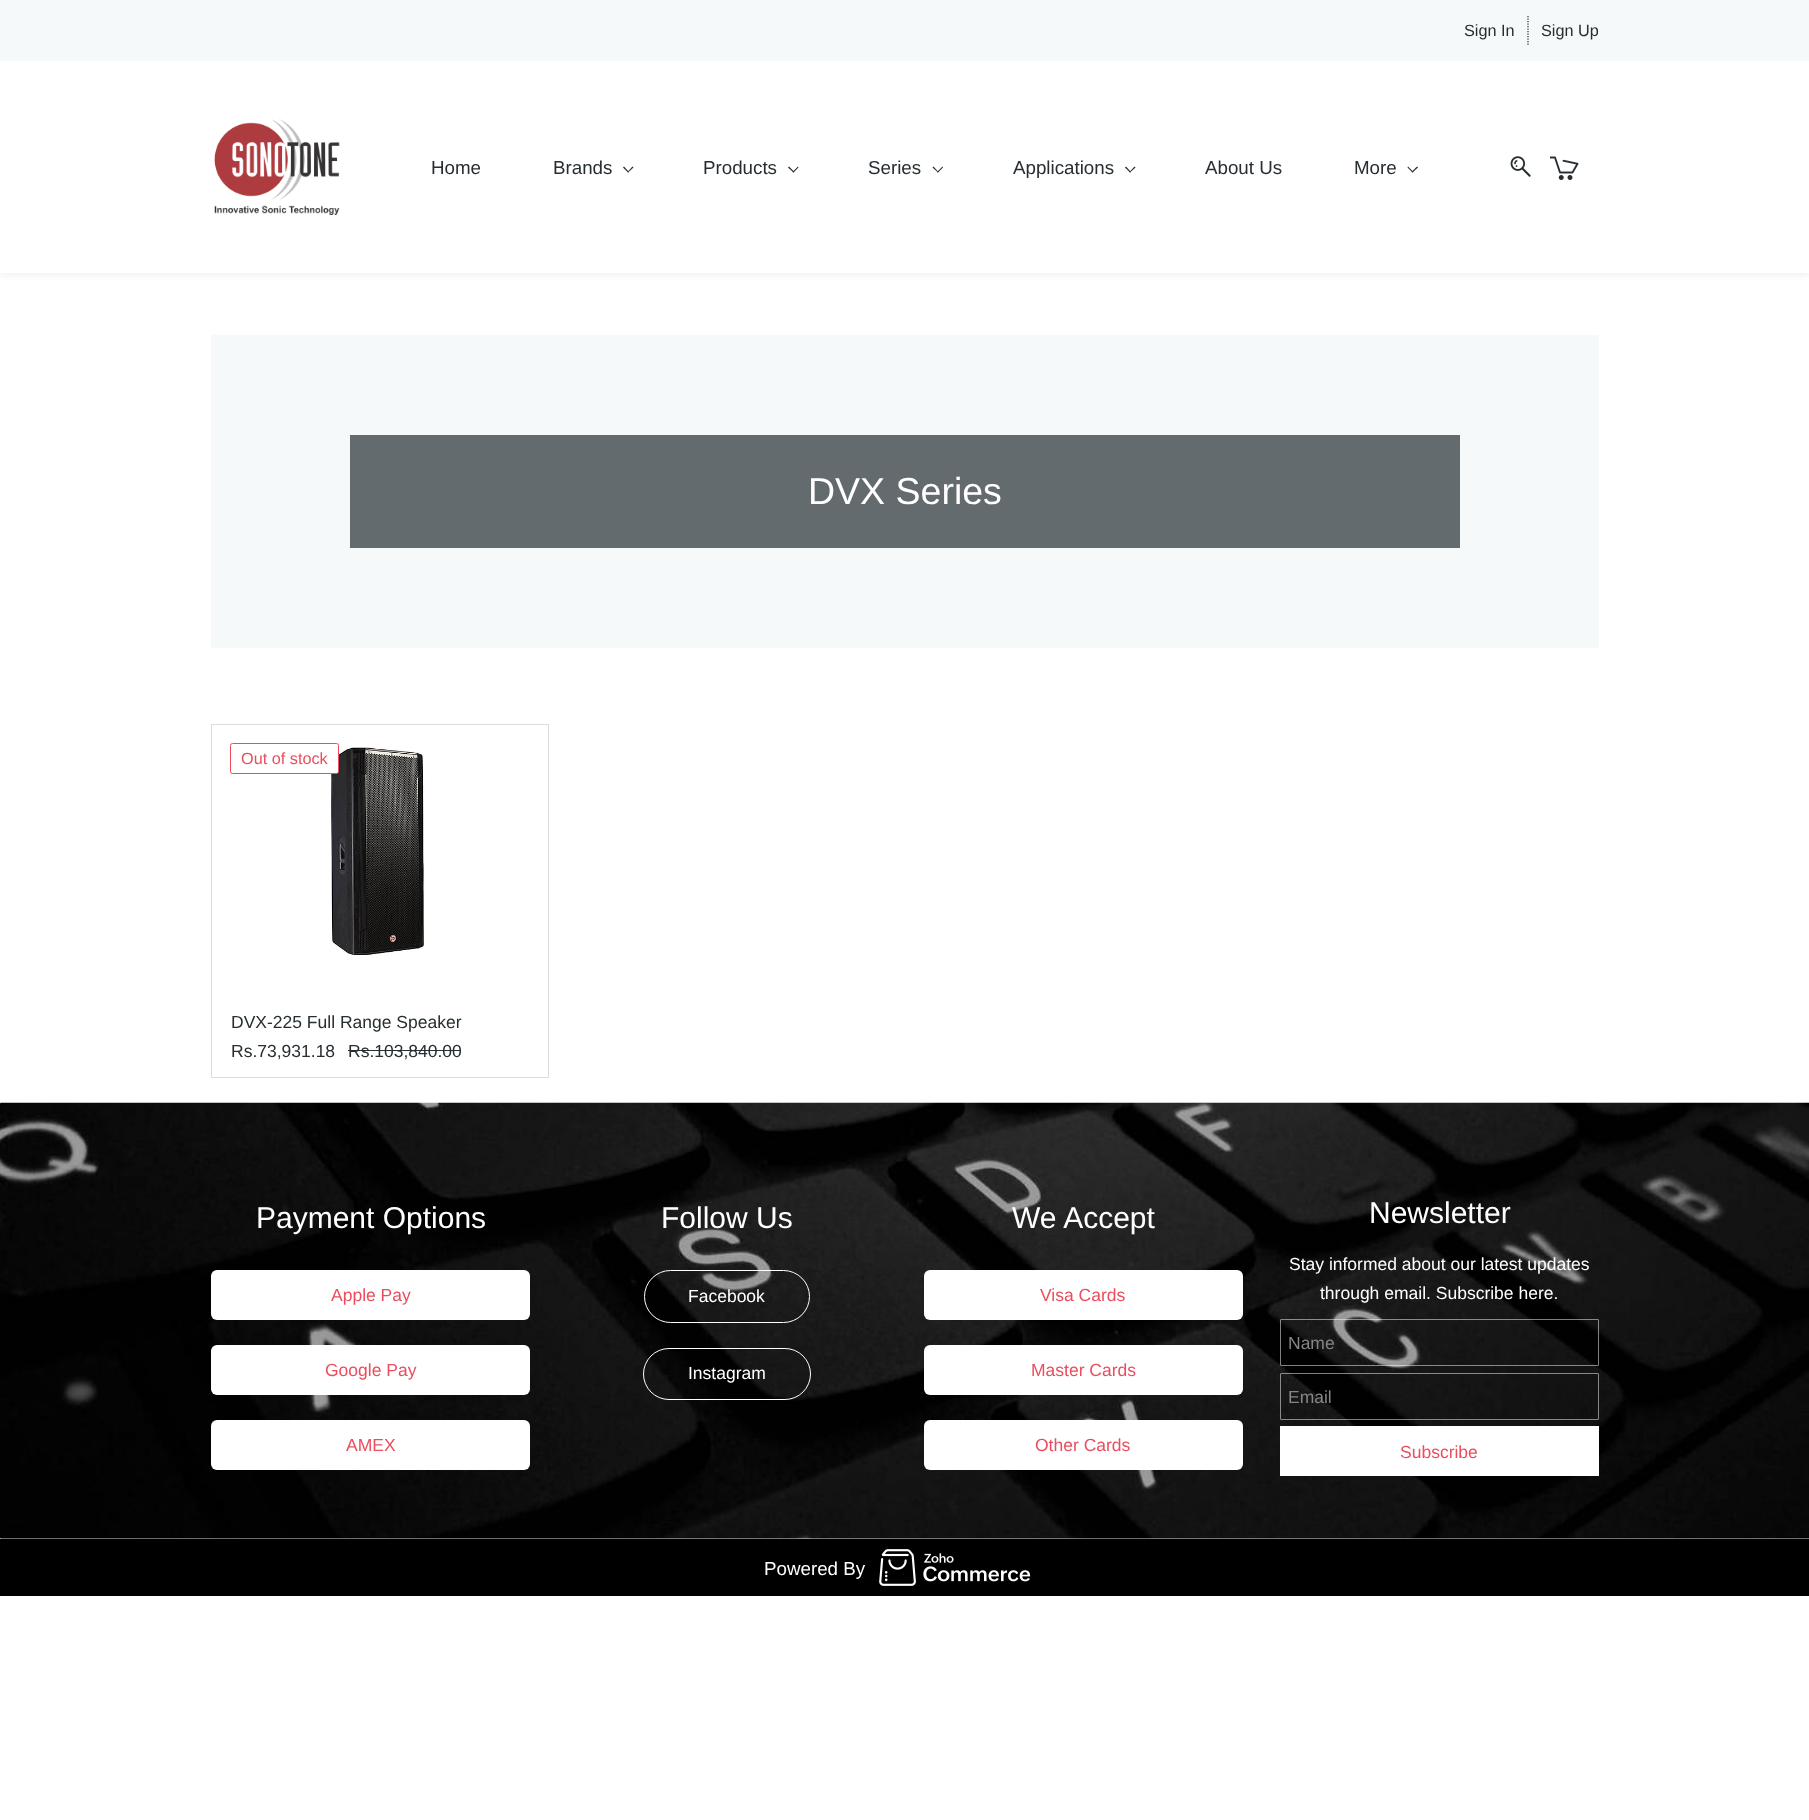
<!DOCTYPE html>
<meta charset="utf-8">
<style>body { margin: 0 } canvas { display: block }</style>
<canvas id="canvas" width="1809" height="1820"></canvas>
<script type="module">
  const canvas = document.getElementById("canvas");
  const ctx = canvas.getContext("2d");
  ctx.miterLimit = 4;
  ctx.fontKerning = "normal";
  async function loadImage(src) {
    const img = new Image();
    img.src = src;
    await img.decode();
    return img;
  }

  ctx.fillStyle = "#ffffff";
  ctx.fillRect(0, 0, 1809, 1820);
  ctx.fillStyle = "rgba(0, 0, 0, 0.05)";
  ctx.filter = "blur(3px)";
  ctx.beginPath();
  ctx.rect(0, 4, 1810, 272);
  ctx.fill();
  ctx.filter = "none";
  ctx.fillStyle = "#f6f9fa";
  ctx.fillRect(0, 0, 1809, 61);
  ctx.font = "16.25px Arimo";
  ctx.fillStyle = "#262e32";
  ctx.fillText("Sign In", 1464, 36);
  ctx.beginPath();
  ctx.moveTo(1528, 16);
  ctx.lineTo(1528, 45);
  ctx.strokeStyle = "#262e32";
  ctx.lineWidth = 1.2;
  ctx.setLineDash([1.25, 1.25]);
  ctx.stroke();
  ctx.fillText("Sign Up", 1541, 36);
  ctx.fillStyle = "#ffffff";
  ctx.fillRect(0, 61, 1809, 212);
  ctx.drawImage(await loadImage("img1.png"), 214, 119, 126, 96);
  ctx.font = "18.75px Arimo";
  ctx.fillStyle = "#262e32";
  ctx.fillText("Home", 431, 174);
  ctx.fillText("Brands", 553, 174);
  ctx.beginPath();
  ctx.moveTo(633.5, 167.5);
  ctx.lineTo(628, 172.5);
  ctx.lineTo(627.5, 172);
  ctx.lineTo(632.5, 166.5);
  ctx.closePath();
  ctx.fill();
  ctx.beginPath();
  ctx.moveTo(629, 172);
  ctx.lineTo(628, 172.5);
  ctx.lineTo(623, 167.5);
  ctx.lineTo(624, 166.5);
  ctx.closePath();
  ctx.fill();
  ctx.fillText("Products", 703, 174);
  ctx.beginPath();
  ctx.moveTo(798.5, 167.5);
  ctx.lineTo(793.5, 172.5);
  ctx.lineTo(792.5, 172);
  ctx.lineTo(798, 166.5);
  ctx.closePath();
  ctx.fill();
  ctx.beginPath();
  ctx.moveTo(794.5, 172);
  ctx.lineTo(793.5, 172.5);
  ctx.lineTo(788, 167.5);
  ctx.lineTo(789, 166.5);
  ctx.closePath();
  ctx.fill();
  ctx.fillText("Series", 868, 174);
  ctx.beginPath();
  ctx.moveTo(943, 167.5);
  ctx.lineTo(938, 172.5);
  ctx.lineTo(937, 172);
  ctx.lineTo(942.5, 166.5);
  ctx.closePath();
  ctx.fill();
  ctx.beginPath();
  ctx.moveTo(938.5, 172);
  ctx.lineTo(938, 172.5);
  ctx.lineTo(932.5, 167.5);
  ctx.lineTo(933.5, 166.5);
  ctx.closePath();
  ctx.fill();
  ctx.fillText("Applications", 1013, 174);
  ctx.beginPath();
  ctx.moveTo(1135.5, 167.5);
  ctx.lineTo(1130, 172.5);
  ctx.lineTo(1129.5, 172);
  ctx.lineTo(1134.5, 166.5);
  ctx.closePath();
  ctx.fill();
  ctx.beginPath();
  ctx.moveTo(1131, 172);
  ctx.lineTo(1130, 172.5);
  ctx.lineTo(1125, 167.5);
  ctx.lineTo(1126, 166.5);
  ctx.closePath();
  ctx.fill();
  ctx.fillText("About Us", 1205, 174);
  ctx.fillText("More", 1354, 174);
  ctx.beginPath();
  ctx.moveTo(1418, 167.5);
  ctx.lineTo(1412.5, 172.5);
  ctx.lineTo(1411.5, 172);
  ctx.lineTo(1417, 166.5);
  ctx.closePath();
  ctx.fill();
  ctx.beginPath();
  ctx.moveTo(1413.5, 172);
  ctx.lineTo(1412.5, 172.5);
  ctx.lineTo(1407.5, 167.5);
  ctx.lineTo(1408, 166.5);
  ctx.closePath();
  ctx.fill();
  ctx.drawImage(await loadImage("img2.png"), 1510, 156, 21, 21);
  ctx.drawImage(await loadImage("img3.png"), 1550, 156, 29, 24);
  ctx.fillStyle = "#f6f9fa";
  ctx.fillRect(211, 335, 1388, 313);
  ctx.fillStyle = "#646b6e";
  ctx.fillRect(350, 435, 1110, 113);
  ctx.font = "37.5px Arimo";
  ctx.fillStyle = "#ffffff";
  ctx.fillText("DVX Series", 808, 504);
  ctx.strokeStyle = "#dcdcdc";
  ctx.lineWidth = 1;
  ctx.setLineDash([]);
  ctx.strokeRect(211.5, 724.5, 337, 353);
  ctx.drawImage(await loadImage("img4.png"), 331, 747, 94, 210);
  ctx.beginPath();
  ctx.roundRect(230.5, 743.5, 108, 30, 2);
  ctx.fill();
  ctx.strokeStyle = "#eb4d5e";
  ctx.stroke();
  ctx.font = "16.25px Arimo";
  ctx.fillStyle = "#eb4d5e";
  ctx.fillText("Out of stock", 241, 764);
  ctx.font = "17.5px Arimo";
  ctx.fillStyle = "#262e32";
  ctx.fillText("DVX-225 Full Range Speaker", 231, 1028);
  ctx.fillText("Rs.73,931.18", 231, 1057);
  ctx.fillText("Rs.103,840.00", 348, 1057);
  ctx.fillRect(348, 1050, 113, 1);
  ctx.fillStyle = "#f6f9fa";
  ctx.beginPath();
  ctx.roundRect(0, 1103, 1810, 436, 1);
  ctx.fill();
  ctx.drawImage(await loadImage("img5.png"), 0, 1102, 1809, 437);
  ctx.font = "30px Arimo";
  ctx.fillStyle = "#ffffff";
  ctx.fillText("Payment Options", 256, 1228);
  ctx.beginPath();
  ctx.roundRect(211, 1270, 319, 50, 6);
  ctx.fill();
  ctx.font = "17.5px Arimo";
  ctx.fillStyle = "#eb4d5e";
  ctx.fillText("Apple Pay", 331, 1301);
  ctx.fillStyle = "#ffffff";
  ctx.beginPath();
  ctx.roundRect(211, 1345, 319, 50, 6);
  ctx.fill();
  ctx.fillStyle = "#eb4d5e";
  ctx.fillText("Google Pay", 325, 1376);
  ctx.fillStyle = "#ffffff";
  ctx.beginPath();
  ctx.roundRect(211, 1420, 319, 50, 6);
  ctx.fill();
  ctx.fillStyle = "#eb4d5e";
  ctx.fillText("AMEX", 346, 1451);
  ctx.font = "30px Arimo";
  ctx.fillStyle = "#ffffff";
  ctx.fillText("Follow Us", 661, 1228);
  ctx.beginPath();
  ctx.roundRect(644.5, 1270.5, 165, 52, 26);
  ctx.strokeStyle = "#ffffff";
  ctx.stroke();
  ctx.font = "17.5px Arimo";
  ctx.fillText("Facebook", 688, 1302);
  ctx.beginPath();
  ctx.roundRect(643.5, 1348.5, 167, 51, 25.5);
  ctx.stroke();
  ctx.fillText("Instagram", 688, 1379);
  ctx.font = "30px Arimo";
  ctx.fillText("We Accept", 1012, 1228);
  ctx.beginPath();
  ctx.roundRect(924, 1270, 319, 50, 6);
  ctx.fill();
  ctx.font = "17.5px Arimo";
  ctx.fillStyle = "#eb4d5e";
  ctx.fillText("Visa Cards", 1040, 1301);
  ctx.fillStyle = "#ffffff";
  ctx.beginPath();
  ctx.roundRect(924, 1345, 319, 50, 6);
  ctx.fill();
  ctx.fillStyle = "#eb4d5e";
  ctx.fillText("Master Cards", 1031, 1376);
  ctx.fillStyle = "#ffffff";
  ctx.beginPath();
  ctx.roundRect(924, 1420, 319, 50, 6);
  ctx.fill();
  ctx.fillStyle = "#eb4d5e";
  ctx.fillText("Other Cards", 1035, 1451);
  ctx.font = "30px Arimo";
  ctx.fillStyle = "#ffffff";
  ctx.fillText("Newsletter", 1369, 1223);
  ctx.font = "17.5px Arimo";
  ctx.fillText("Stay informed about our latest updates", 1289, 1270);
  ctx.fillText("through email. Subscribe here.", 1320, 1299);
  ctx.beginPath();
  ctx.roundRect(1280.5, 1319.5, 318, 46, 0.5);
  ctx.strokeStyle = "rgba(255, 255, 255, 0.5)";
  ctx.stroke();
  ctx.fillStyle = "#868686";
  ctx.fillText("Name", 1288, 1349);
  ctx.beginPath();
  ctx.roundRect(1280.5, 1373.5, 318, 46, 0.5);
  ctx.stroke();
  ctx.fillText("Email", 1288, 1403);
  ctx.fillStyle = "#ffffff";
  ctx.fillRect(1280, 1426, 319, 50);
  ctx.fillStyle = "#eb4d5e";
  ctx.fillText("Subscribe", 1400, 1458);
  ctx.fillStyle = "#000000";
  ctx.fillRect(0, 1539, 1809, 57);
  ctx.font = "18.75px Arimo";
  ctx.fillStyle = "#ffffff";
  ctx.fillText("Powered By", 764, 1575);
  ctx.drawImage(await loadImage("img6.png"), 879, 1549, 152, 37);
</script>
